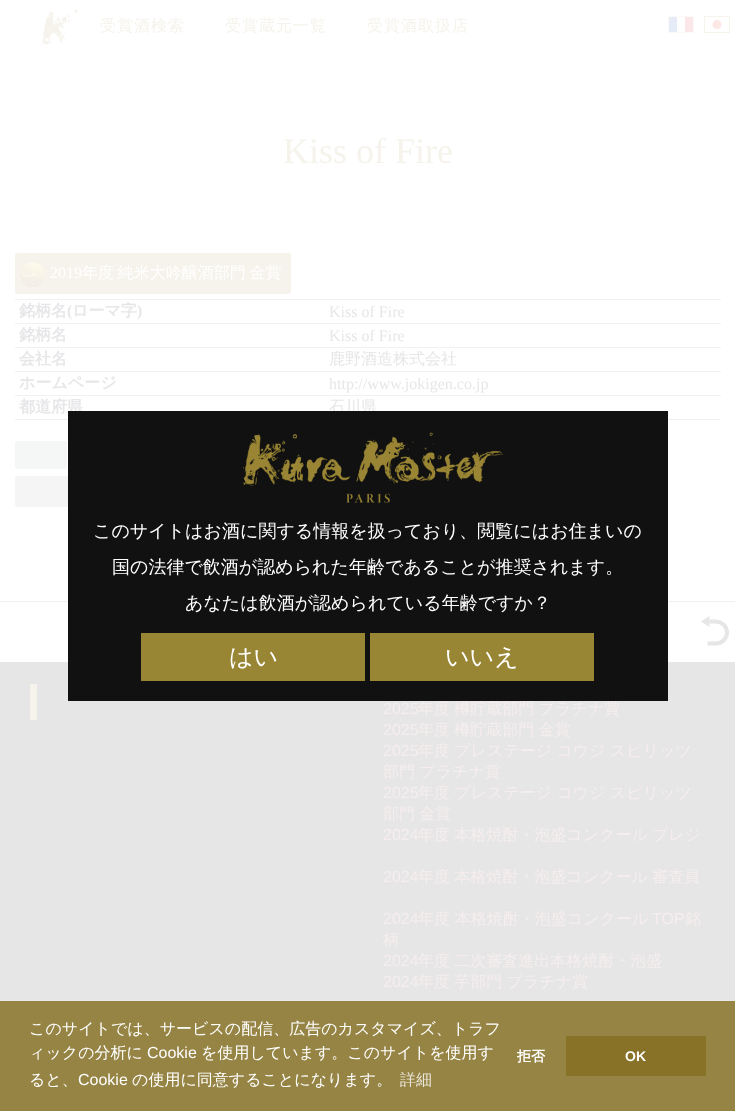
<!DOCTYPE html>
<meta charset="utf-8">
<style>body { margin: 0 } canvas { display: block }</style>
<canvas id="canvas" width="735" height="1111"></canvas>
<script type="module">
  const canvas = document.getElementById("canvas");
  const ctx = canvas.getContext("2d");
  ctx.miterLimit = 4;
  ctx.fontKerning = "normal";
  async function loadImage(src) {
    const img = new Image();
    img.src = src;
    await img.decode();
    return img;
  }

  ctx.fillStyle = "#ffffff";
  ctx.fillRect(0, 0, 735, 1111);
  ctx.drawImage(await loadImage("img1.png"), 42, 10, 36, 35);
  ctx.letterSpacing = "1px";
  ctx.font = "500 16px WenQuanYi Zen Hei";
  ctx.fillStyle = "#f5f3eb";
  ctx.fillText("受賞酒検索", 100, 31);
  ctx.fillText("受賞蔵元一覧", 225, 31);
  ctx.fillText("受賞酒取扱店", 367, 31);
  ctx.drawImage(await loadImage("img2.png"), 669, 17, 24, 15);
  ctx.strokeStyle = "#fcfaf5";
  ctx.strokeRect(668.5, 16.5, 25, 16);
  ctx.drawImage(await loadImage("img3.png"), 705, 20, 24, 12);
  ctx.strokeStyle = "#f5f3eb";
  ctx.strokeRect(704.5, 16.5, 25, 16);
  ctx.letterSpacing = "0px";
  ctx.font = "36px Liberation Serif";
  ctx.fillText("Kiss of Fire", 283, 163);
  ctx.beginPath();
  ctx.roundRect(15, 253, 276, 41, 2.5);
  ctx.fill();
  ctx.drawImage(await loadImage("img4.png"), 20, 262, 25, 26);
  ctx.font = "16px Liberation Serif";
  ctx.fillStyle = "#ffffff";
  ctx.fillText("2019", 50, 278);
  ctx.wordSpacing = "-1px";
  ctx.font = "500 16px WenQuanYi Zen Hei";
  ctx.fillText("年度 純米大吟醸酒部門 金賞", 82, 278);
  ctx.fillStyle = "#f1f1f1";
  ctx.fillRect(15, 419, 705, 1);
  ctx.wordSpacing = "0px";
  ctx.font = "bold 16px WenQuanYi Zen Hei";
  ctx.fillStyle = "#e7e6e8";
  ctx.fillText("銘柄名", 19, 316);
  ctx.font = "bold 16px Liberation Serif";
  ctx.fillText("(", 67, 316);
  ctx.font = "bold 16px WenQuanYi Zen Hei";
  ctx.fillText("ローマ字", 72, 316);
  ctx.font = "bold 16px Liberation Serif";
  ctx.fillText(")", 137, 316);
  ctx.fillStyle = "#f1f1f1";
  ctx.fillRect(15, 299, 706, 1);
  ctx.font = "16px Liberation Serif";
  ctx.fillStyle = "#e7e6e8";
  ctx.fillText("Kiss of Fire", 329, 317);
  ctx.font = "bold 16px WenQuanYi Zen Hei";
  ctx.fillText("銘柄名", 19, 340);
  ctx.fillStyle = "#f1f1f1";
  ctx.fillRect(15, 323, 706, 1);
  ctx.font = "16px Liberation Serif";
  ctx.fillStyle = "#e7e6e8";
  ctx.fillText("Kiss of Fire", 329, 341);
  ctx.font = "bold 16px WenQuanYi Zen Hei";
  ctx.fillText("会社名", 19, 364);
  ctx.fillStyle = "#f1f1f1";
  ctx.fillRect(15, 347, 706, 1);
  ctx.font = "500 16px WenQuanYi Zen Hei";
  ctx.fillStyle = "#e7e6e8";
  ctx.fillText("鹿野酒造株式会社", 329, 364);
  ctx.font = "bold 16px WenQuanYi Zen Hei";
  ctx.fillText("ホームページ", 19, 388);
  ctx.fillStyle = "#f1f1f1";
  ctx.fillRect(15, 371, 706, 1);
  ctx.font = "16px Liberation Serif";
  ctx.fillStyle = "#e7e6e8";
  ctx.fillText("http://www.jokigen.co.jp", 329, 389);
  ctx.font = "bold 16px WenQuanYi Zen Hei";
  ctx.fillText("都道府県", 19, 412);
  ctx.fillStyle = "#f1f1f1";
  ctx.fillRect(15, 395, 706, 1);
  ctx.font = "500 16px WenQuanYi Zen Hei";
  ctx.fillStyle = "#e7e6e8";
  ctx.fillText("石川県", 329, 412);
  ctx.fillStyle = "#f5f7f6";
  ctx.beginPath();
  ctx.roundRect(15, 441, 52, 28, 2.5);
  ctx.fill();
  ctx.fillStyle = "#f5f5f5";
  ctx.beginPath();
  ctx.roundRect(15, 476, 68, 31, 2.5);
  ctx.fill();
  ctx.fillStyle = "#e6e6e6";
  ctx.fillRect(0, 662, 735, 449);
  ctx.fillStyle = "#f1f1f1";
  ctx.fillRect(0, 601, 735, 1);
  ctx.wordSpacing = "-0.5px";
  ctx.fillStyle = "#f6edee";
  ctx.fillText("年度 樽貯蔵部門 プラチナ賞", 418, 714);
  ctx.fillStyle = "#111111";
  ctx.fillRect(68, 411, 600, 290);
  ctx.drawImage(await loadImage("img5.png"), 243, 432, 260, 71);
  ctx.wordSpacing = "0px";
  ctx.font = "500 18px WenQuanYi Zen Hei";
  ctx.fillStyle = "#ffffff";
  ctx.fillText("このサイトはお酒に関する情報を扱っており、閲覧にはお住まいの", 93, 537);
  ctx.fillText("国の法律で飲酒が認められた年齢であることが推奨されます。", 112, 573);
  ctx.fillText("あなたは飲酒が認められている年齢ですか？", 185, 609);
  ctx.fillStyle = "#998634";
  ctx.fillRect(141, 633, 224, 48);
  ctx.font = "500 24px WenQuanYi Zen Hei";
  ctx.fillStyle = "#ffffff";
  ctx.fillText("はい", 229, 665);
  ctx.fillStyle = "#998634";
  ctx.fillRect(370, 633, 224, 48);
  ctx.fillStyle = "#ffffff";
  ctx.fillText("いいえ", 445, 665);
  ctx.beginPath();
  ctx.moveTo(707.5, 643.5);
  ctx.lineTo(716, 643.5);
  ctx.bezierCurveTo(722, 643.5, 727, 638.5, 727, 632.5);
  ctx.bezierCurveTo(727, 626.5, 722, 621.5, 715.5, 621.5);
  ctx.lineTo(709.5, 621.5);
  ctx.strokeStyle = "#e6e6e6";
  ctx.lineWidth = 4;
  ctx.stroke();
  ctx.fillStyle = "#e6e6e6";
  ctx.beginPath();
  ctx.moveTo(709.5, 627);
  ctx.lineTo(701, 621.5);
  ctx.lineTo(709.5, 616);
  ctx.closePath();
  ctx.fill();
  ctx.fillStyle = "#f5f3eb";
  ctx.fillRect(30, 684, 7, 36);
  ctx.font = "16px Liberation Sans";
  ctx.fillStyle = "#f6edee";
  ctx.fillText("2025", 383, 714);
  ctx.fillText("2025", 383, 735);
  ctx.wordSpacing = "-0.5px";
  ctx.font = "500 16px WenQuanYi Zen Hei";
  ctx.fillText("年度 樽貯蔵部門 金賞", 418, 735);
  ctx.wordSpacing = "0px";
  ctx.font = "16px Liberation Sans";
  ctx.fillText("2025", 383, 756);
  ctx.wordSpacing = "-0.5px";
  ctx.font = "500 16px WenQuanYi Zen Hei";
  ctx.fillText("年度 プレステージ コウジ スピリッツ", 418, 756);
  ctx.fillText("部門 プラチナ賞", 383, 777);
  ctx.wordSpacing = "0px";
  ctx.font = "16px Liberation Sans";
  ctx.fillText("2025", 383, 798);
  ctx.wordSpacing = "-0.5px";
  ctx.font = "500 16px WenQuanYi Zen Hei";
  ctx.fillText("年度 プレステージ コウジ スピリッツ", 418, 798);
  ctx.fillText("部門 金賞", 383, 819);
  ctx.wordSpacing = "0px";
  ctx.font = "16px Liberation Sans";
  ctx.fillText("2024", 383, 840);
  ctx.wordSpacing = "-0.5px";
  ctx.font = "500 16px WenQuanYi Zen Hei";
  ctx.fillText("年度 本格焼酎・泡盛コンクール プレジ", 418, 840);
  ctx.wordSpacing = "0px";
  ctx.font = "16px Liberation Sans";
  ctx.fillText("2024", 383, 882);
  ctx.wordSpacing = "-0.5px";
  ctx.font = "500 16px WenQuanYi Zen Hei";
  ctx.fillText("年度 本格焼酎・泡盛コンクール 審査員", 418, 882);
  ctx.wordSpacing = "0px";
  ctx.font = "16px Liberation Sans";
  ctx.fillText("2024", 383, 924);
  ctx.font = "500 16px WenQuanYi Zen Hei";
  ctx.fillText("年度 本格焼酎・泡盛コンクール", 418, 924);
  ctx.font = "16px Liberation Sans";
  ctx.fillText("TOP", 652, 924);
  ctx.font = "500 16px WenQuanYi Zen Hei";
  ctx.fillText("銘", 685, 924);
  ctx.fillText("柄", 383, 945);
  ctx.font = "16px Liberation Sans";
  ctx.fillText("2024", 383, 966);
  ctx.wordSpacing = "-0.5px";
  ctx.font = "500 16px WenQuanYi Zen Hei";
  ctx.fillText("年度 二次審査進出本格焼酎・泡盛", 418, 966);
  ctx.wordSpacing = "0px";
  ctx.font = "16px Liberation Sans";
  ctx.fillText("2024", 383, 987);
  ctx.wordSpacing = "-0.5px";
  ctx.font = "500 16px WenQuanYi Zen Hei";
  ctx.fillText("年度 芋部門 プラチナ賞", 418, 987);
  ctx.fillStyle = "rgba(135, 114, 39, 0.85)";
  ctx.fillRect(0, 1001, 735, 110);
  ctx.wordSpacing = "0px";
  ctx.fillStyle = "#ffffff";
  ctx.fillText("このサイトでは、サービスの配信、広告のカスタマイズ、トラフ", 29, 1034);
  ctx.fillText("ィックの分析に", 29, 1058);
  ctx.font = "16px Liberation Sans";
  ctx.fillText("Cookie", 147, 1058);
  ctx.font = "500 16px WenQuanYi Zen Hei";
  ctx.fillText("を使用しています。このサイトを使用す", 201, 1058);
  ctx.fillText("ると、", 29, 1085);
  ctx.font = "16px Liberation Sans";
  ctx.fillText("Cookie", 78, 1085);
  ctx.font = "500 16px WenQuanYi Zen Hei";
  ctx.fillText("の使用に同意することになります。", 132, 1085);
  ctx.fillStyle = "#eae6da";
  ctx.fillText("詳細", 400, 1085);
  ctx.font = "bold 14px WenQuanYi Zen Hei";
  ctx.fillStyle = "#ffffff";
  ctx.fillText("拒否", 517, 1061);
  ctx.fillStyle = "#877227";
  ctx.fillRect(566, 1036, 140, 40);
  ctx.font = "bold 14px Liberation Sans";
  ctx.fillStyle = "#ffffff";
  ctx.fillText("OK", 625, 1061);
</script>
